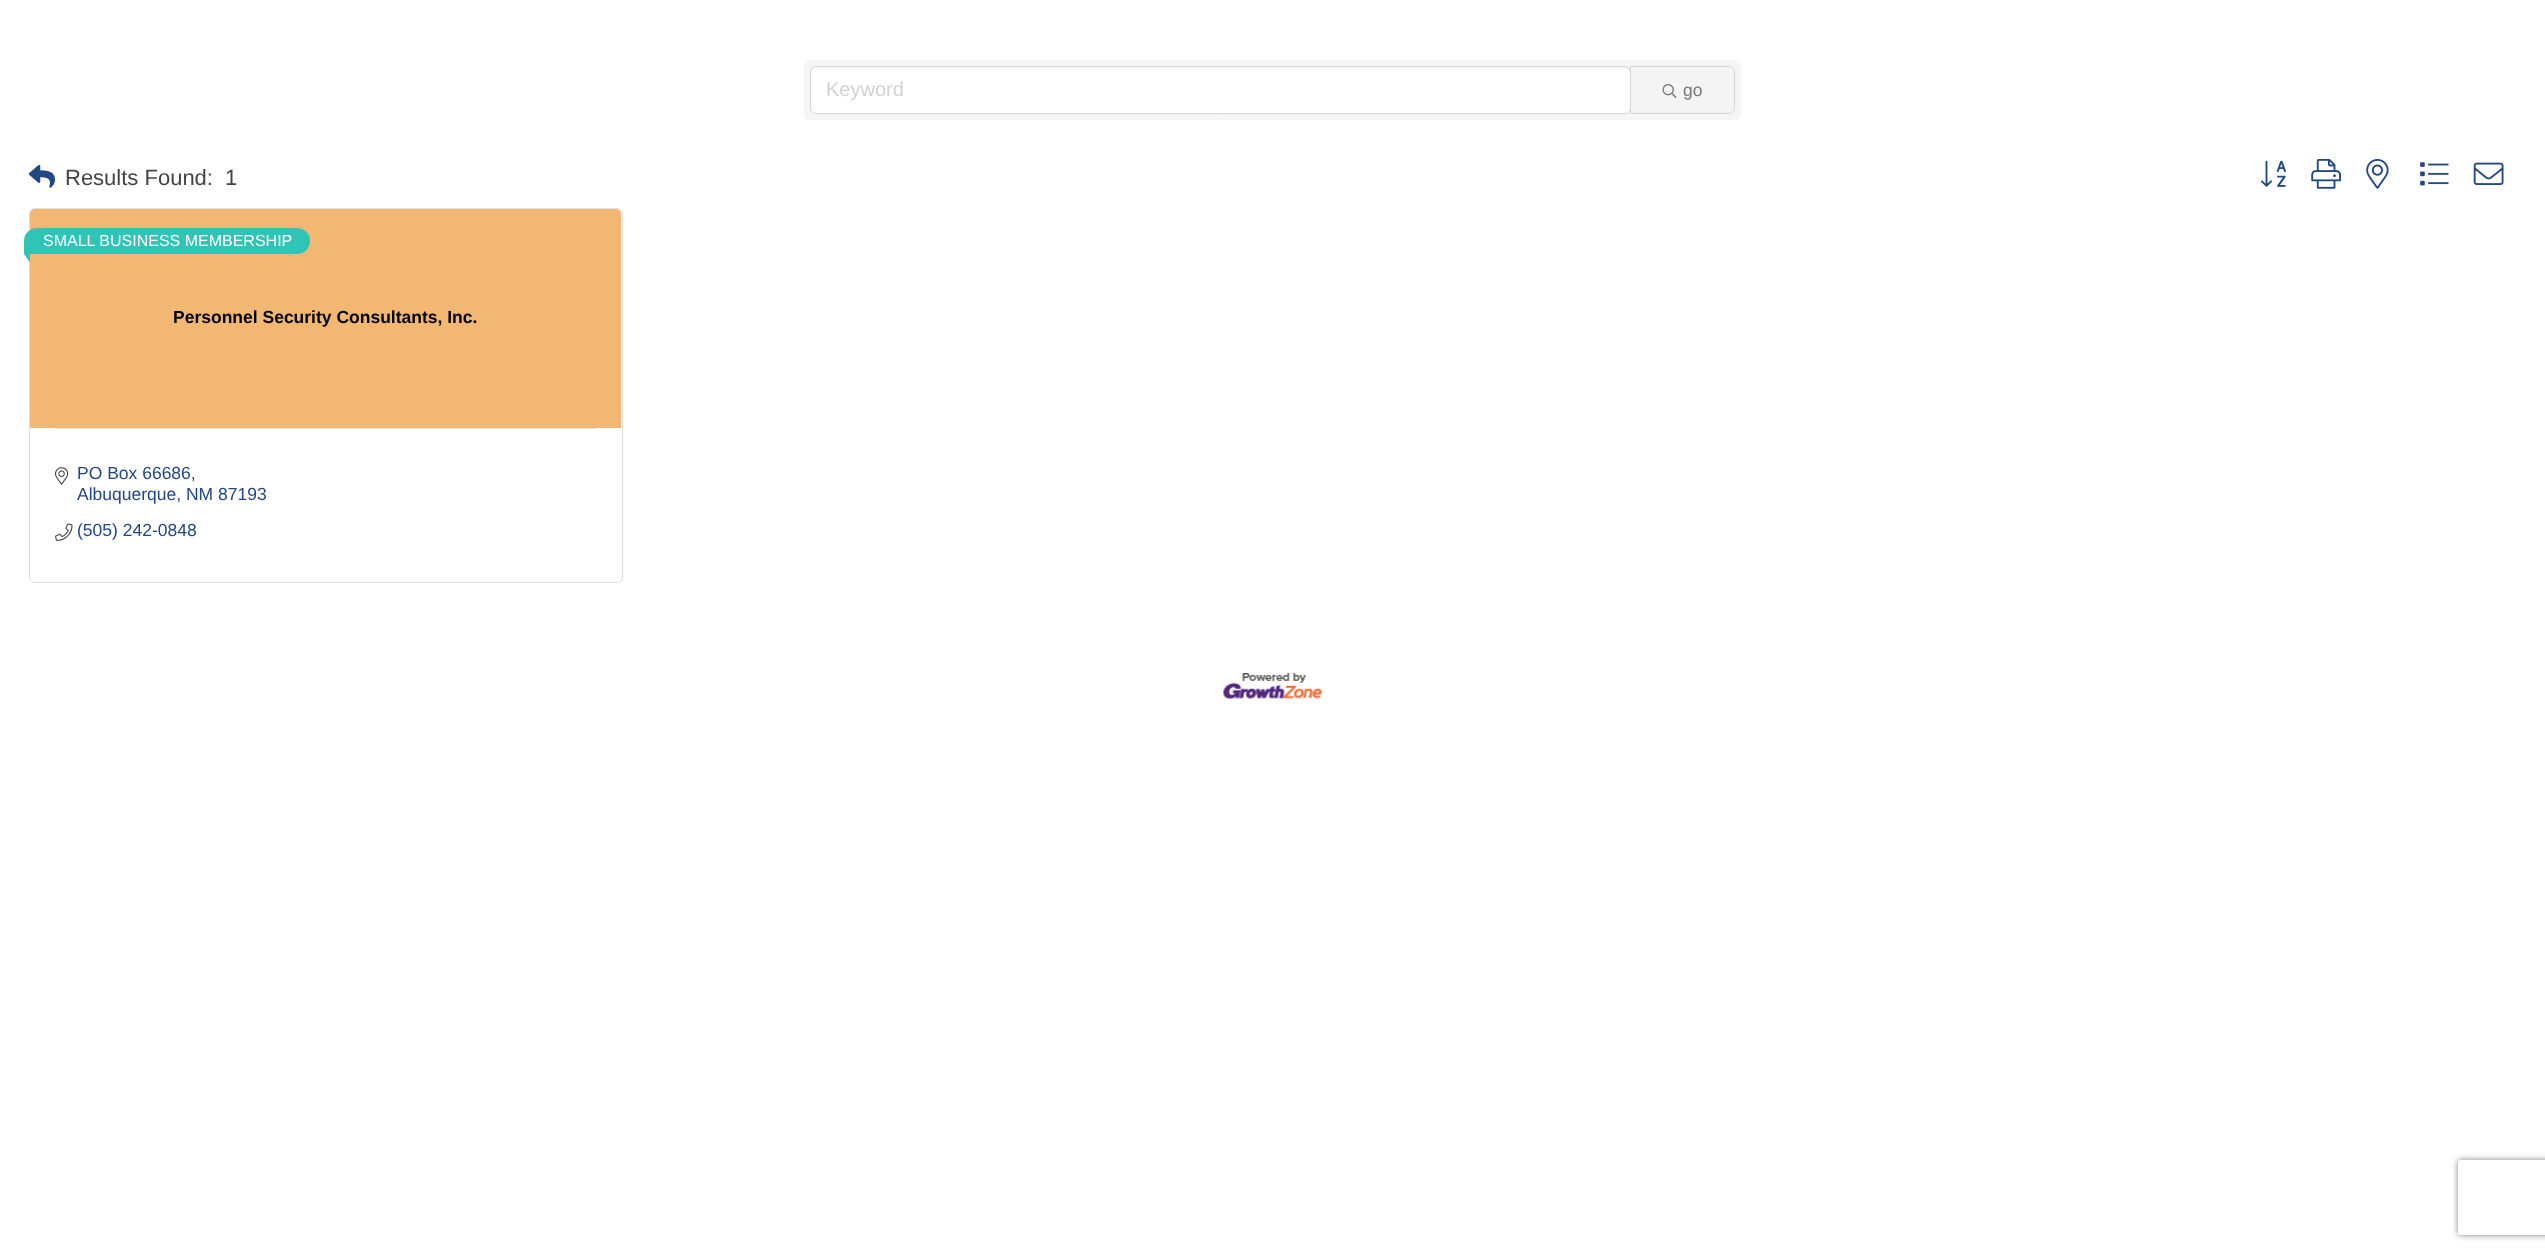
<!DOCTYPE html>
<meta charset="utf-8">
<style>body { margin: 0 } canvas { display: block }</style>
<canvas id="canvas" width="2545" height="1252"></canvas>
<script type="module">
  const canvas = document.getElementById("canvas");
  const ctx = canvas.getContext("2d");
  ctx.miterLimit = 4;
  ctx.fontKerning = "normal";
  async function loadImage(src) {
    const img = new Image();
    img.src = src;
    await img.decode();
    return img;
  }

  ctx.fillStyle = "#ffffff";
  ctx.fillRect(0, 0, 2545, 1252);
  ctx.fillStyle = "#f5f5f5";
  ctx.beginPath();
  ctx.roundRect(804, 60, 937, 60, 6);
  ctx.fill();
  ctx.fillStyle = "#ffffff";
  ctx.beginPath();
  ctx.roundRect(811, 68, 819, 45, 5);
  ctx.fill();
  ctx.beginPath();
  ctx.roundRect(810.5, 66.5, 820, 47, 5.5);
  ctx.strokeStyle = "rgba(0, 0, 0, 0.12)";
  ctx.stroke();
  ctx.font = "20px Liberation Sans";
  ctx.fillStyle = "#d2d2d2";
  ctx.fillText("Keyword", 826, 96);
  ctx.fillStyle = "#f4f4f4";
  ctx.beginPath();
  ctx.roundRect(1630.5, 66.5, 104, 47, [0, 5.5, 5.5, 0]);
  ctx.fill();
  ctx.strokeStyle = "#d6d6d6";
  ctx.stroke();
  ctx.drawImage(await loadImage("img1.png"), 1662, 84, 15, 14);
  ctx.font = "17.5px Liberation Sans";
  ctx.fillStyle = "#777777";
  ctx.fillText("go", 1683, 96);
  ctx.drawImage(await loadImage("img2.png"), 28, 165, 28, 23);
  ctx.font = "22px Liberation Sans";
  ctx.fillStyle = "#444444";
  ctx.fillText("Results Found:", 65, 185);
  ctx.fillText("1", 225, 185);
  ctx.drawImage(await loadImage("img3.png"), 2261, 160, 25, 27);
  ctx.drawImage(await loadImage("img4.png"), 2311, 159, 30, 30);
  ctx.drawImage(await loadImage("img5.png"), 2366, 159, 23, 30);
  ctx.drawImage(await loadImage("img6.png"), 2420, 162, 29, 24);
  ctx.drawImage(await loadImage("img7.png"), 2473, 162, 31, 23);
  ctx.beginPath();
  ctx.roundRect(29.5, 208.5, 593, 374, 5.5);
  ctx.strokeStyle = "#dfdfdf";
  ctx.stroke();
  ctx.fillStyle = "#f2b772";
  ctx.beginPath();
  ctx.roundRect(30, 209, 591, 219, [5, 5, 0, 0]);
  ctx.fill();
  ctx.fillStyle = "#2ec4b6";
  ctx.beginPath();
  ctx.roundRect(24, 228, 286, 26, [13, 13, 13, 0.5]);
  ctx.fill();
  ctx.font = "16px Liberation Sans";
  ctx.fillStyle = "#ffffff";
  ctx.fillText("SMALL BUSINESS MEMBERSHIP", 43, 246);
  ctx.fillStyle = "#2ec4b6";
  ctx.beginPath();
  ctx.moveTo(30, 245);
  ctx.lineTo(30, 262.5);
  ctx.lineTo(24, 254);
  ctx.closePath();
  ctx.fill();
  ctx.font = "bold 17.5px Liberation Sans";
  ctx.fillStyle = "#000000";
  ctx.fillText("Personnel Security Consultants, Inc.", 173, 323);
  ctx.fillStyle = "#dfdfdf";
  ctx.fillRect(55, 428, 541, 1);
  ctx.drawImage(await loadImage("img8.png"), 55, 467, 14, 18);
  ctx.font = "17.5px Liberation Sans";
  ctx.fillStyle = "#224884";
  ctx.fillText("PO Box 66686,", 77, 479);
  ctx.fillText("Albuquerque, NM 87193", 77, 500);
  ctx.drawImage(await loadImage("img9.png"), 55, 523, 18, 18);
  ctx.fillText("(505) 242-0848", 77, 536);
  ctx.drawImage(await loadImage("img10.png"), 1223, 673, 99, 26);
  ctx.save();
  ctx.beginPath();
  ctx.moveTo(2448, 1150);
  ctx.lineTo(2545, 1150);
  ctx.lineTo(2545, 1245);
  ctx.lineTo(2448, 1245);
  ctx.closePath();
  ctx.moveTo(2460.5, 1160);
  ctx.lineTo(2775.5, 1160);
  ctx.bezierCurveTo(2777, 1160, 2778, 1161, 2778, 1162.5);
  ctx.lineTo(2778, 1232.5);
  ctx.bezierCurveTo(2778, 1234, 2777, 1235, 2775.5, 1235);
  ctx.lineTo(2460.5, 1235);
  ctx.bezierCurveTo(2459, 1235, 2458, 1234, 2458, 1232.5);
  ctx.lineTo(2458, 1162.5);
  ctx.bezierCurveTo(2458, 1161, 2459, 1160, 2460.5, 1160);
  ctx.closePath();
  ctx.clip("evenodd");
  ctx.fillStyle = "#808080";
  ctx.filter = "blur(3px)";
  ctx.beginPath();
  ctx.roundRect(2458, 1160, 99, 75, 2.5);
  ctx.fill();
  ctx.filter = "none";
  ctx.restore();
</script>
